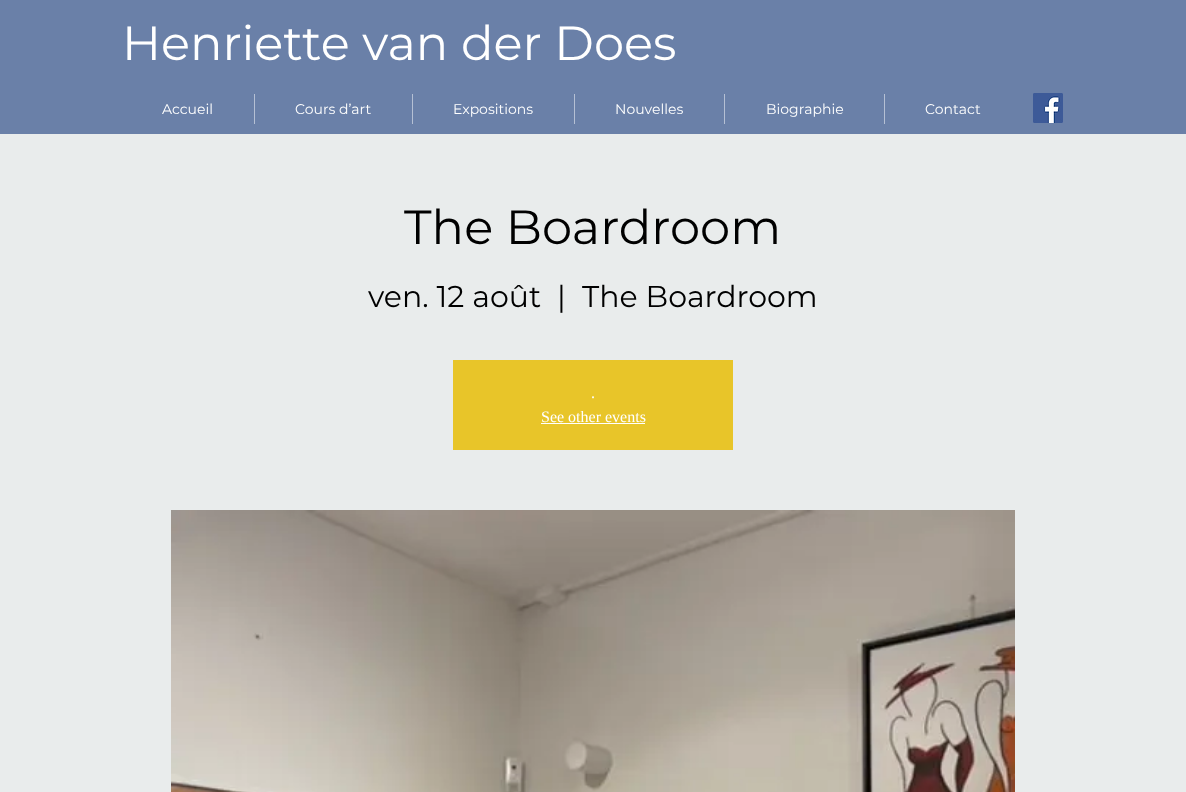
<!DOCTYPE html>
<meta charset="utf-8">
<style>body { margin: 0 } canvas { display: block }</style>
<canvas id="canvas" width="1186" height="792"></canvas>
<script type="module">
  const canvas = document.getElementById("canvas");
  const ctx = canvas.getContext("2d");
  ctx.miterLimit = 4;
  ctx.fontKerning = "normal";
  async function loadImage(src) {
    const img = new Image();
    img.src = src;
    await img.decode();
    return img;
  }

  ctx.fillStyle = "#e9ecec";
  ctx.fillRect(0, 0, 1186, 792);
  ctx.fillStyle = "#6a80a8";
  ctx.fillRect(0, 0, 1186, 134);
  ctx.font = "48px Montserrat";
  ctx.fillStyle = "#ffffff";
  ctx.fillText("Henriette van der Does", 122, 60);
  ctx.font = "14px Montserrat";
  ctx.fillText("Accueil", 162, 114);
  ctx.fillStyle = "#b5c0d4";
  ctx.fillRect(254, 94, 1, 30);
  ctx.fillStyle = "#ffffff";
  ctx.fillText("Cours d’art", 295, 114);
  ctx.fillStyle = "#b5c0d4";
  ctx.fillRect(412, 94, 1, 30);
  ctx.fillStyle = "#ffffff";
  ctx.fillText("Expositions", 453, 114);
  ctx.fillStyle = "#b5c0d4";
  ctx.fillRect(574, 94, 1, 30);
  ctx.fillStyle = "#ffffff";
  ctx.fillText("Nouvelles", 615, 114);
  ctx.fillStyle = "#b5c0d4";
  ctx.fillRect(724, 94, 1, 30);
  ctx.fillStyle = "#ffffff";
  ctx.fillText("Biographie", 766, 114);
  ctx.fillStyle = "#b5c0d4";
  ctx.fillRect(884, 94, 1, 30);
  ctx.fillStyle = "#ffffff";
  ctx.fillText("Contact", 925, 114);
  ctx.drawImage(await loadImage("img1.png"), 1033, 93, 30, 30);
  ctx.font = "48px Montserrat";
  ctx.fillStyle = "#000000";
  ctx.fillText("The Boardroom", 404, 244);
  ctx.font = "30px Montserrat";
  ctx.fillText("ven. 12 août", 368, 307);
  ctx.fillText("|", 557, 307);
  ctx.fillText("The Boardroom", 582, 307);
  ctx.fillStyle = "#e8c529";
  ctx.fillRect(453, 360, 280, 90);
  ctx.font = "16px Liberation Serif";
  ctx.fillStyle = "#ffffff";
  ctx.fillText(".", 591, 398);
  ctx.fillText("See other events", 541, 422);
  ctx.fillRect(541, 423, 104, 1);
  ctx.drawImage(await loadImage("img2.png"), 171, 510, 844, 282);
</script>
